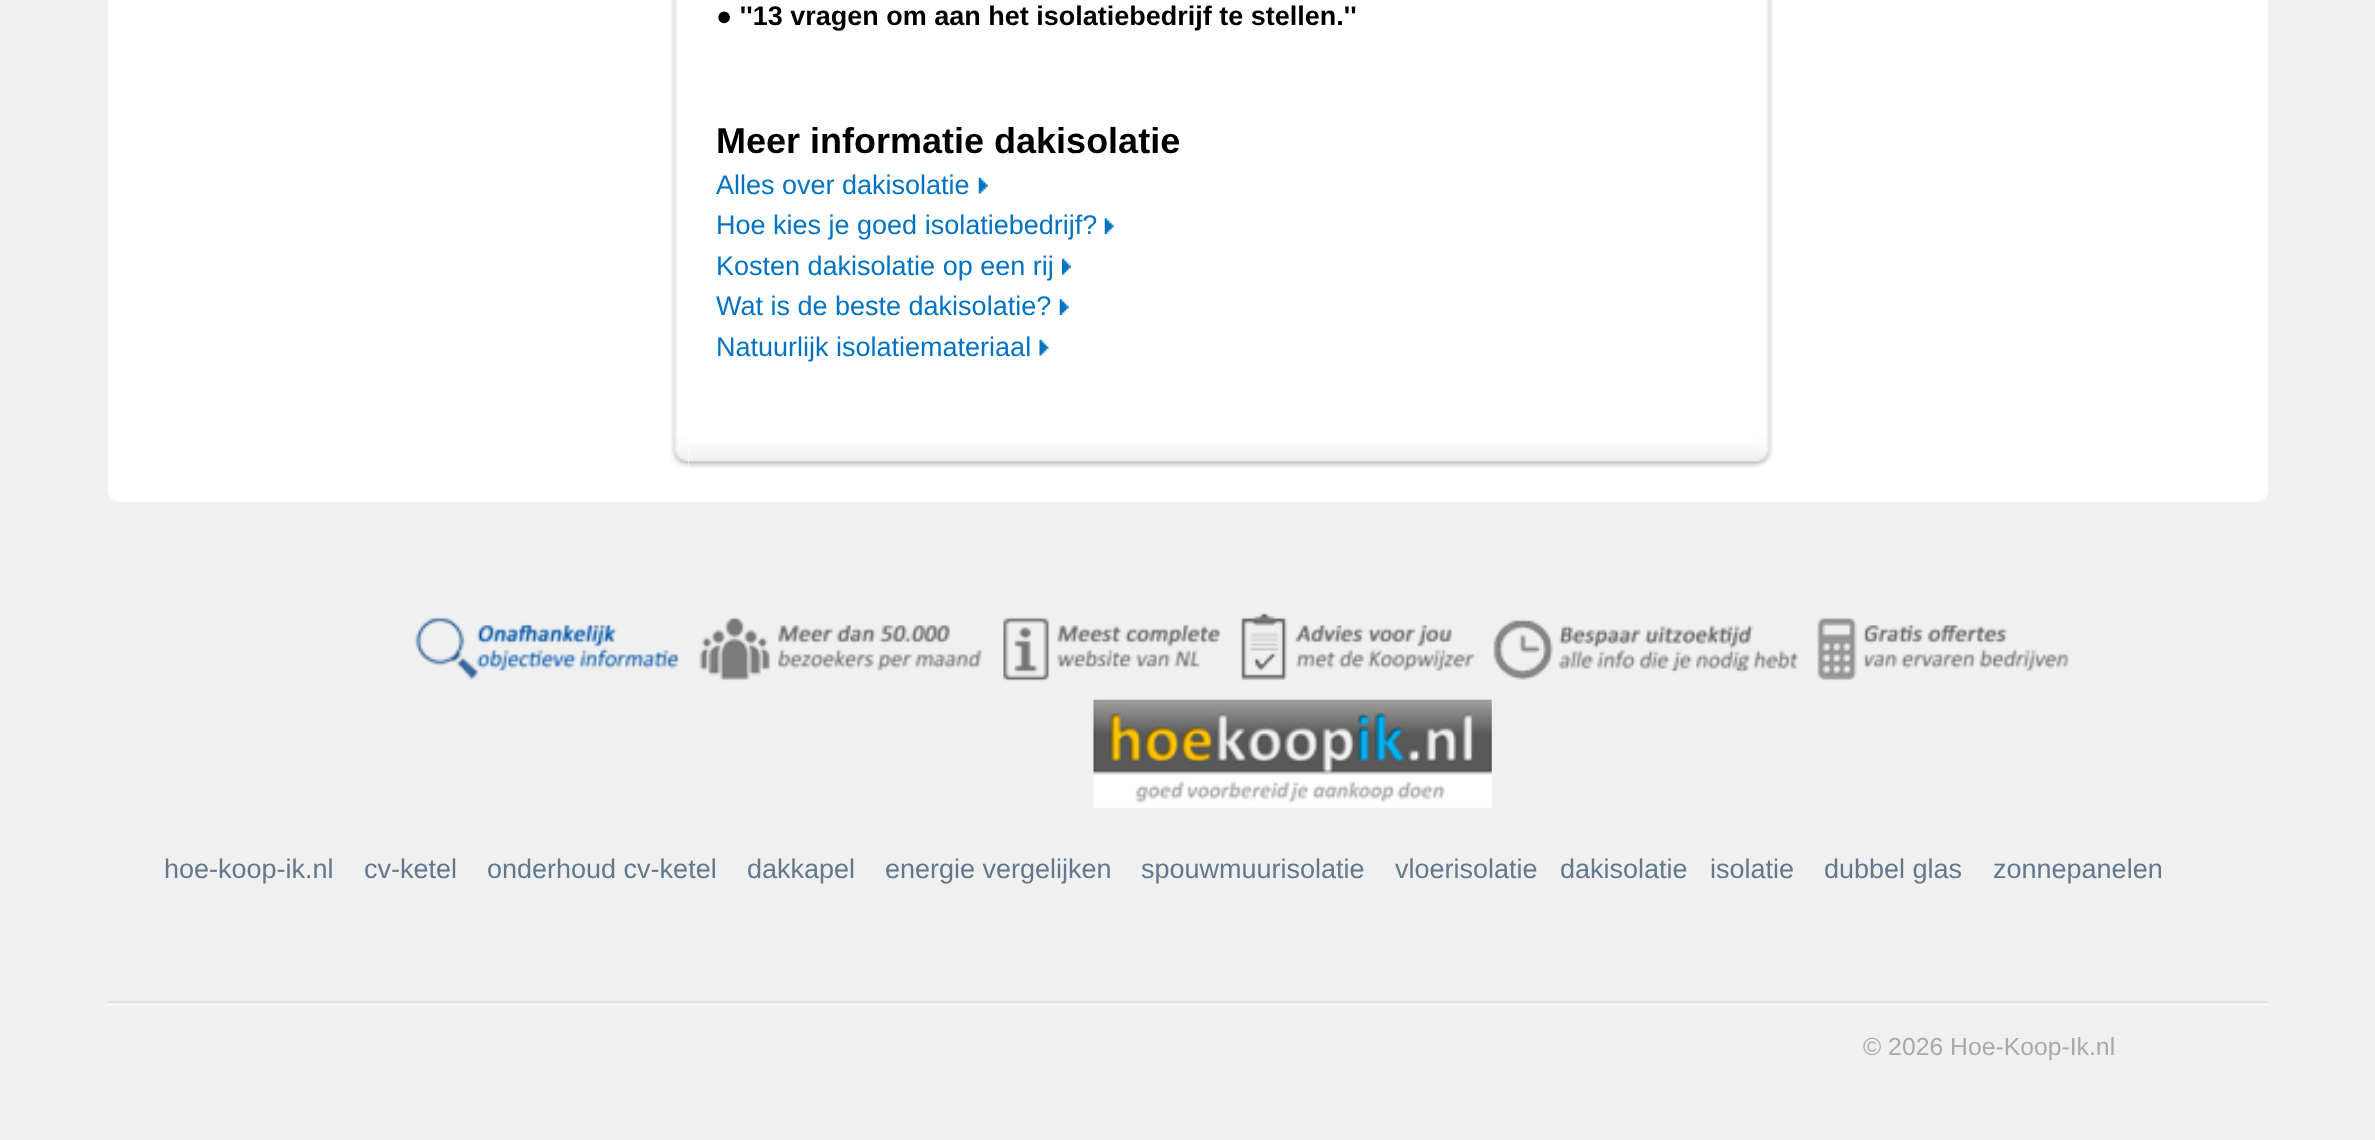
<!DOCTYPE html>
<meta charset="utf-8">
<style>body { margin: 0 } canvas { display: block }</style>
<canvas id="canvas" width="2375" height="1140"></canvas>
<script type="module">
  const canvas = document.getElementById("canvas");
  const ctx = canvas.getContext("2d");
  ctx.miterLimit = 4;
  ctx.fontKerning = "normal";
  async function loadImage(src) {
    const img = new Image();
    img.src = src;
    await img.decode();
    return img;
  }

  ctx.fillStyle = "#f0f0f0";
  ctx.fillRect(0, 0, 2375, 1140);
  ctx.fillStyle = "#ffffff";
  ctx.fillRect(108, 0, 2160, 502);
  ctx.drawImage(await loadImage("img1.png"), 670, 0, 8, 435);
  ctx.drawImage(await loadImage("img2.png"), 1766, 0, 7, 434);
  ctx.font = "bold 27px Liberation Sans";
  ctx.fillStyle = "#000000";
  ctx.fillText("● ''13 vragen om aan het isolatiebedrijf te stellen.''", 716, 25);
  ctx.font = "bold 36px Liberation Sans";
  ctx.fillText("Meer informatie dakisolatie", 716, 153);
  ctx.font = "27px Liberation Sans";
  ctx.fillStyle = "#0273c3";
  ctx.fillText("Alles over dakisolatie", 716, 194);
  ctx.drawImage(await loadImage("img3.png"), 978, 177, 10, 17);
  ctx.fillText("Hoe kies je goed isolatiebedrijf?", 716, 234);
  ctx.drawImage(await loadImage("img4.png"), 1104, 218, 10, 16);
  ctx.fillText("Kosten dakisolatie op een rij", 716, 275);
  ctx.drawImage(await loadImage("img5.png"), 1062, 258, 9, 17);
  ctx.fillText("Wat is de beste dakisolatie?", 716, 315);
  ctx.drawImage(await loadImage("img6.png"), 1059, 299, 10, 16);
  ctx.fillText("Natuurlijk isolatiemateriaal", 716, 356);
  ctx.drawImage(await loadImage("img7.png"), 1039, 339, 10, 17);
  ctx.drawImage(await loadImage("img8.png"), 670, 443, 1085, 25);
  ctx.fillStyle = "#ffffff";
  ctx.fillRect(671, 434, 18, 34);
  ctx.drawImage(await loadImage("img9.png"), 670, 434, 19, 34);
  ctx.drawImage(await loadImage("img10.png"), 1755, 434, 18, 34);
  ctx.drawImage(await loadImage("img11.png"), 108, 494, 2160, 8);
  ctx.fillStyle = "#e2e2e2";
  ctx.fillRect(108, 1001, 2160, 2);
  ctx.drawImage(await loadImage("img12.png"), 414, 612, 1655, 70);
  ctx.drawImage(await loadImage("img13.png"), 1093, 699, 399, 109);
  ctx.fillStyle = "#62788c";
  ctx.fillText("hoe-koop-ik.nl", 164, 878);
  ctx.fillText("cv-ketel", 364, 878);
  ctx.fillText("onderhoud cv-ketel", 487, 878);
  ctx.fillText("dakkapel", 747, 878);
  ctx.fillText("energie vergelijken", 885, 878);
  ctx.fillText("spouwmuurisolatie", 1141, 878);
  ctx.fillText("vloerisolatie", 1395, 878);
  ctx.fillText("dakisolatie", 1560, 878);
  ctx.fillText("isolatie", 1710, 878);
  ctx.fillText("dubbel glas", 1824, 878);
  ctx.fillText("zonnepanelen", 1993, 878);
  ctx.fillStyle = "#f7f7f7";
  ctx.fillRect(108, 1004, 2160, 2);
  ctx.font = "24.75px Liberation Sans";
  ctx.fillStyle = "#a9a9a9";
  ctx.fillText("© 2026 Hoe-Koop-Ik.nl", 1863, 1055);
</script>
